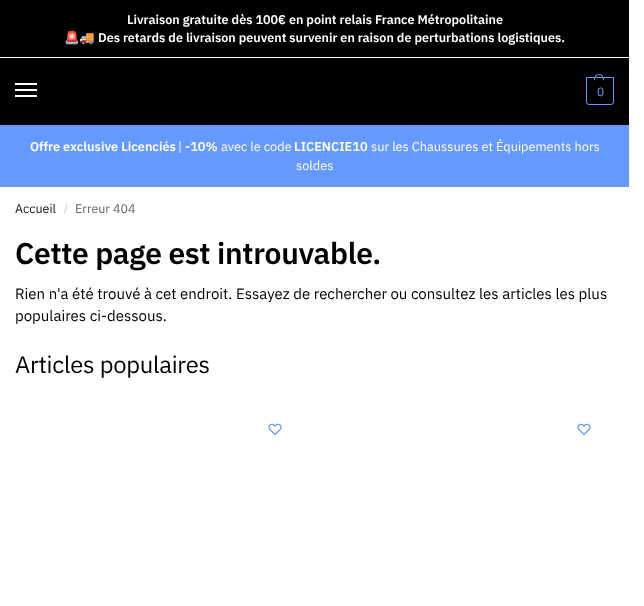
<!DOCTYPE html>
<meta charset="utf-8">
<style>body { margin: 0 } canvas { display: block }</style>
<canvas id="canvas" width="644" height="606"></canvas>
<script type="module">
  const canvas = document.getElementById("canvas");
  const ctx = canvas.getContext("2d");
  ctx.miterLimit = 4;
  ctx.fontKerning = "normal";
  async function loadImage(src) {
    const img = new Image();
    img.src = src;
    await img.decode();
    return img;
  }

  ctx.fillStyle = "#ffffff";
  ctx.fillRect(0, 0, 644, 606);
  ctx.fillStyle = "#000000";
  ctx.fillRect(0, 0, 629, 57);
  ctx.font = "600 12.6px IBM Plex Sans";
  ctx.fillStyle = "#ffffff";
  ctx.fillText("Livraison gratuite dès 100€ en point relais France Métropolitaine", 127, 24);
  ctx.font = "bold 12.6px Noto Color Emoji";
  ctx.fillText("🚨🚚", 64, 42);
  ctx.font = "600 12.6px IBM Plex Sans";
  ctx.fillText("Des retards de livraison peuvent survenir en raison de perturbations logistiques.", 98, 42);
  ctx.fillStyle = "#000000";
  ctx.fillRect(0, 58, 629, 67);
  ctx.fillStyle = "#ffffff";
  ctx.fillRect(15, 83, 22, 2);
  ctx.fillRect(15, 89, 22, 2);
  ctx.fillRect(15, 95, 22, 2);
  ctx.beginPath();
  ctx.roundRect(586.5, 77.5, 27, 27, [0, 0, 2.5, 2.5]);
  ctx.strokeStyle = "#6699ff";
  ctx.stroke();
  ctx.fillStyle = "#6699ff";
  ctx.beginPath();
  ctx.moveTo(599, 74);
  ctx.bezierCurveTo(602.5, 74, 604, 77, 604, 80);
  ctx.lineTo(594, 80);
  ctx.bezierCurveTo(594, 77, 595.5, 74, 599, 74);
  ctx.closePath();
  ctx.moveTo(599, 75);
  ctx.bezierCurveTo(602, 75, 603, 77.5, 603, 80);
  ctx.lineTo(595, 80);
  ctx.bezierCurveTo(595, 77.5, 596, 75, 599, 75);
  ctx.closePath();
  ctx.fill("evenodd");
  ctx.letterSpacing = "-1px";
  ctx.font = "12px IBM Plex Sans";
  ctx.fillText("0", 597, 96);
  ctx.fillRect(0, 125, 629, 62);
  ctx.letterSpacing = "0px";
  ctx.font = "600 12.75px IBM Plex Sans";
  ctx.fillStyle = "#ffffff";
  ctx.fillText("Offre exclusive Licenciés", 30, 151);
  ctx.font = "12.75px IBM Plex Sans";
  ctx.fillText("|", 178, 151);
  ctx.font = "600 12.75px IBM Plex Sans";
  ctx.fillText("-10%", 185, 151);
  ctx.font = "12.75px IBM Plex Sans";
  ctx.fillText("avec le code", 221, 151);
  ctx.font = "600 12.75px IBM Plex Sans";
  ctx.fillText("LICENCIE10", 294, 151);
  ctx.font = "12.75px IBM Plex Sans";
  ctx.fillText("sur les Chaussures et Équipements hors", 371, 151);
  ctx.fillText("soldes", 296, 170);
  ctx.font = "12.5px IBM Plex Sans";
  ctx.fillStyle = "#111111";
  ctx.fillText("Accueil", 15, 213);
  ctx.font = "10px IBM Plex Sans";
  ctx.fillStyle = "#c2c2c2";
  ctx.fillText("/", 64, 212);
  ctx.font = "12.5px IBM Plex Sans";
  ctx.fillStyle = "#666666";
  ctx.fillText("Erreur 404", 75, 213);
  ctx.letterSpacing = "-0.3px";
  ctx.font = "600 30px IBM Plex Sans";
  ctx.fillStyle = "#000000";
  ctx.fillText("Cette page est introuvable.", 15, 264);
  ctx.letterSpacing = "0px";
  ctx.font = "15px IBM Plex Sans";
  ctx.fillText("Rien n'a été trouvé à cet endroit. Essayez de rechercher ou consultez les articles les plus", 15, 299);
  ctx.fillText("populaires ci-dessous.", 15, 321);
  ctx.letterSpacing = "-0.25px";
  ctx.font = "23.75px IBM Plex Sans";
  ctx.fillText("Articles populaires", 15, 373);
  ctx.drawImage(await loadImage("img1.png"), 268, 423, 14, 13);
  ctx.drawImage(await loadImage("img1.png"), 577, 423, 14, 13);
</script>
